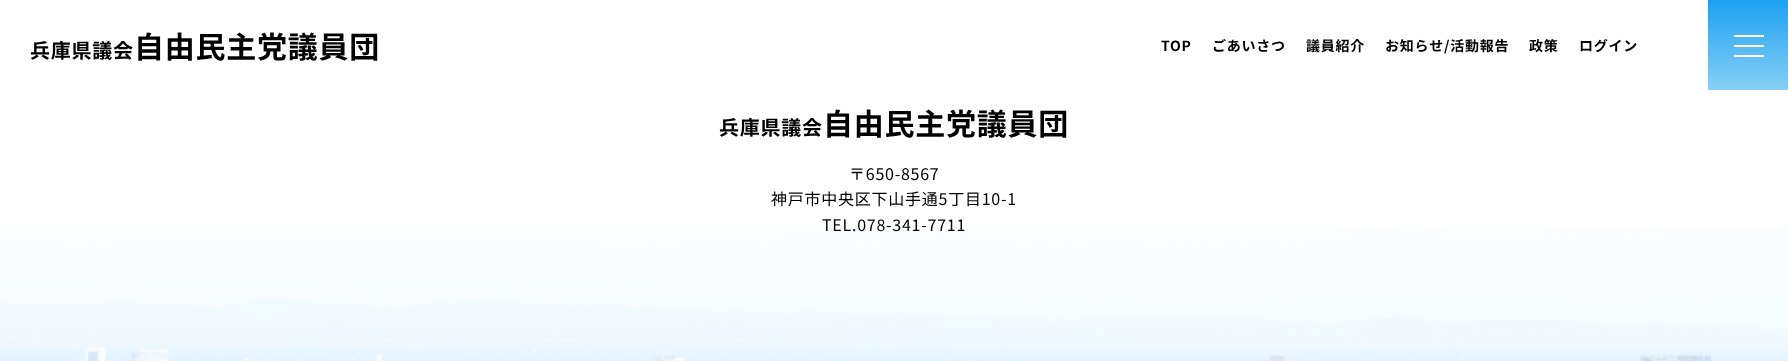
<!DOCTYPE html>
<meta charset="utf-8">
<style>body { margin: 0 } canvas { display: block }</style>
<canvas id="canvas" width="1788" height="361"></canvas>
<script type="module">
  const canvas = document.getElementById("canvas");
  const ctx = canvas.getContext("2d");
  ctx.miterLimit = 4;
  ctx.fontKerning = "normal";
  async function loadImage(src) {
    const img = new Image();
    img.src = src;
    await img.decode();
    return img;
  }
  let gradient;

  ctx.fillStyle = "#ffffff";
  ctx.fillRect(0, 0, 1788, 361);
  ctx.letterSpacing = "0.75px";
  ctx.font = "bold 20px Noto Sans JP";
  ctx.fillStyle = "#000000";
  ctx.fillText("兵庫県議会", 30, 58);
  ctx.font = "bold 30px Noto Sans JP";
  ctx.fillText("自由民主党議員団", 134, 58);
  ctx.font = "bold 14px Noto Sans JP";
  ctx.fillText("TOP", 1161, 51);
  ctx.fillText("ごあいさつ", 1212, 51);
  ctx.fillText("議員紹介", 1306, 51);
  ctx.fillText("お知らせ/活動報告", 1385, 51);
  ctx.fillText("政策", 1529, 51);
  ctx.fillText("ログイン", 1579, 51);
  gradient = ctx.createLinearGradient(1748, 90, 1748, 0);
  gradient.addColorStop(0, "#87d0f5");
  gradient.addColorStop(1, "#1da1f2");
  ctx.fillStyle = gradient;
  ctx.fillRect(1708, 0, 80, 90);
  ctx.fillStyle = "#ffffff";
  ctx.fillRect(1734, 35, 30, 2);
  ctx.fillRect(1734, 45, 30, 2);
  ctx.fillRect(1734, 55, 30, 2);
  ctx.font = "bold 20px Noto Sans JP";
  ctx.fillStyle = "#000000";
  ctx.fillText("兵庫県議会", 719, 135);
  ctx.font = "bold 30px Noto Sans JP";
  ctx.fillText("自由民主党議員団", 823, 135);
  ctx.font = "16px Noto Sans JP";
  ctx.fillText("〒650-8567", 849, 180);
  ctx.fillText("神戸市中央区下山手通5丁目10-1", 771, 205);
  ctx.drawImage(await loadImage("img1.png"), 0, 226, 1788, 135);
  ctx.fillText("TEL.078-341-7711", 822, 231);
</script>
